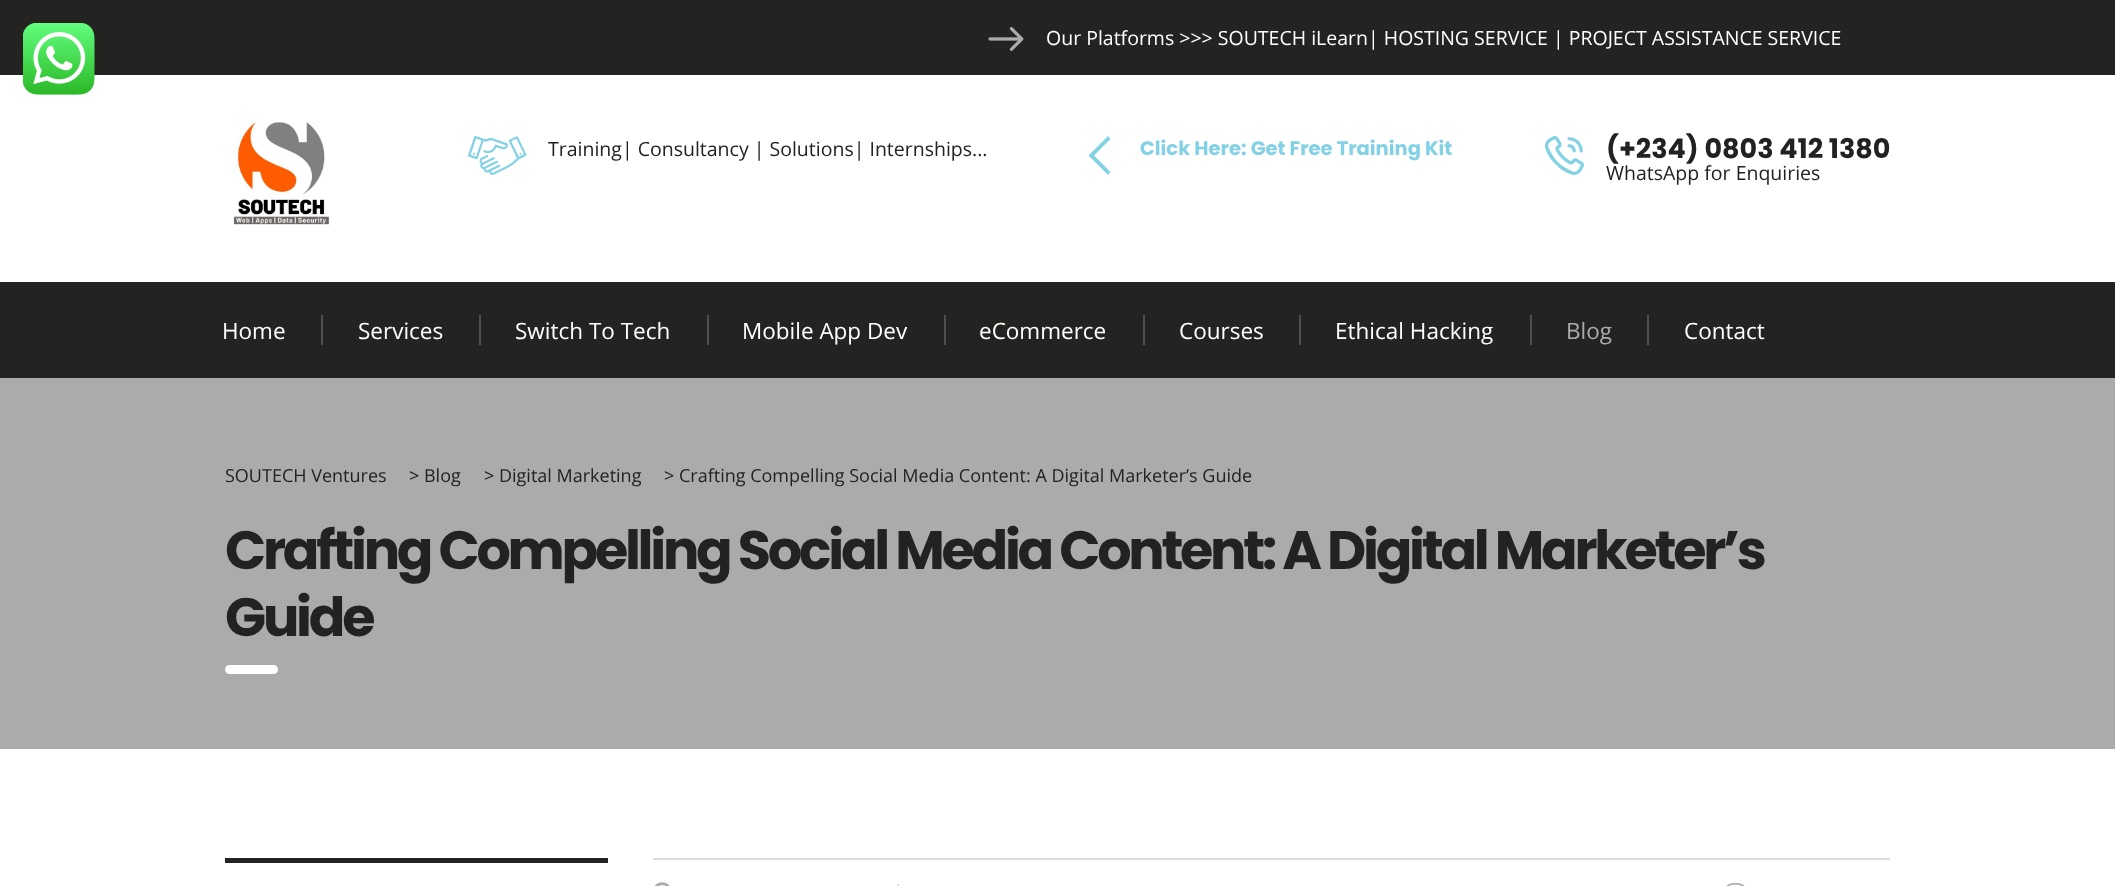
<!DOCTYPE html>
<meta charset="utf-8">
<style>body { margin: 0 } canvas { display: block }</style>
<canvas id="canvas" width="2115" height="886"></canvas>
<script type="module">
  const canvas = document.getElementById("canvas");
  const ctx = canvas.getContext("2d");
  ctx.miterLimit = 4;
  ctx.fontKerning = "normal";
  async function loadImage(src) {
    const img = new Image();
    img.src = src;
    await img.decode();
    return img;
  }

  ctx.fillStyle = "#ffffff";
  ctx.fillRect(0, 0, 2115, 886);
  ctx.fillStyle = "#232321";
  ctx.fillRect(0, 0, 2115, 75);
  ctx.drawImage(await loadImage("img1.png"), 23, 23, 72, 72);
  ctx.drawImage(await loadImage("img2.png"), 988, 27, 36, 24);
  ctx.font = "19.5px Open Sans";
  ctx.fillStyle = "#ffffff";
  ctx.fillText("Our Platforms >>> SOUTECH iLearn| HOSTING SERVICE | PROJECT ASSISTANCE SERVICE", 1046, 45);
  ctx.drawImage(await loadImage("img3.png"), 233, 122, 97, 103);
  ctx.drawImage(await loadImage("img4.png"), 468, 136, 59, 39);
  ctx.fillStyle = "#222222";
  ctx.fillText("Training| Consultancy | Solutions| Internships...", 548, 156);
  ctx.fillStyle = "#83d1e5";
  ctx.beginPath();
  ctx.moveTo(1088.5, 155.5);
  ctx.lineTo(1108, 136);
  ctx.lineTo(1110.5, 139);
  ctx.lineTo(1094, 155.5);
  ctx.lineTo(1110.5, 172);
  ctx.lineTo(1108, 175);
  ctx.closePath();
  ctx.fill();
  ctx.font = "bold 19.5px Poppins";
  ctx.fillText("Click Here: Get Free Training Kit", 1140, 155);
  ctx.drawImage(await loadImage("img5.png"), 1545, 135, 39, 40);
  ctx.font = "bold 27px Poppins";
  ctx.fillStyle = "#222222";
  ctx.fillText("(+234) 0803 412 1380", 1606, 158);
  ctx.font = "19.5px Open Sans";
  ctx.fillText("WhatsApp for Enquiries", 1606, 180);
  ctx.fillStyle = "#232321";
  ctx.fillRect(0, 282, 2115, 96);
  ctx.font = "22.5px Open Sans";
  ctx.fillStyle = "#ffffff";
  ctx.fillText("Home", 222, 339);
  ctx.fillStyle = "#4f4f4d";
  ctx.fillRect(321, 315, 2, 30);
  ctx.fillStyle = "#ffffff";
  ctx.fillText("Services", 358, 339);
  ctx.fillStyle = "#4f4f4d";
  ctx.fillRect(479, 315, 2, 30);
  ctx.fillStyle = "#ffffff";
  ctx.fillText("Switch To Tech", 515, 339);
  ctx.fillStyle = "#4f4f4d";
  ctx.fillRect(707, 315, 2, 30);
  ctx.fillStyle = "#ffffff";
  ctx.fillText("Mobile App Dev", 742, 339);
  ctx.fillStyle = "#4f4f4d";
  ctx.fillRect(944, 315, 2, 30);
  ctx.fillStyle = "#ffffff";
  ctx.fillText("eCommerce", 979, 339);
  ctx.fillStyle = "#4f4f4d";
  ctx.fillRect(1143, 315, 2, 30);
  ctx.fillStyle = "#ffffff";
  ctx.fillText("Courses", 1179, 339);
  ctx.fillStyle = "#4f4f4d";
  ctx.fillRect(1299, 315, 2, 30);
  ctx.fillStyle = "#ffffff";
  ctx.fillText("Ethical Hacking", 1335, 339);
  ctx.fillStyle = "#4f4f4d";
  ctx.fillRect(1530, 315, 2, 30);
  ctx.fillStyle = "#ababab";
  ctx.fillText("Blog", 1566, 339);
  ctx.fillStyle = "#4f4f4d";
  ctx.fillRect(1647, 315, 2, 30);
  ctx.fillStyle = "#ffffff";
  ctx.fillText("Contact", 1684, 339);
  ctx.fillStyle = "#ababab";
  ctx.fillRect(0, 378, 2115, 371);
  ctx.font = "18px Open Sans";
  ctx.fillStyle = "#222222";
  ctx.fillText("SOUTECH Ventures", 225, 482);
  ctx.fillText("> Blog", 409, 482);
  ctx.fillText("> Digital Marketing", 484, 482);
  ctx.fillText("> Crafting Compelling Social Media Content: A Digital Marketer’s Guide", 664, 482);
  ctx.letterSpacing = "-3.25px";
  ctx.font = "bold 54px Poppins";
  ctx.fillText("Crafting Compelling Social Media Content: A Digital Marketer’s", 225, 569);
  ctx.fillText("Guide", 225, 636);
  ctx.fillStyle = "#ffffff";
  ctx.beginPath();
  ctx.roundRect(225, 665, 53, 9, 4.5);
  ctx.fill();
  ctx.fillStyle = "#232321";
  ctx.fillRect(225, 858, 383, 5);
  ctx.fillStyle = "#dddddd";
  ctx.fillRect(653, 858, 1237, 2);
  ctx.drawImage(await loadImage("img6.png"), 654, 882, 16, 4);
  ctx.fillRect(897, 884, 2, 2);
  ctx.drawImage(await loadImage("img7.png"), 1726, 882, 19, 4);
</script>
